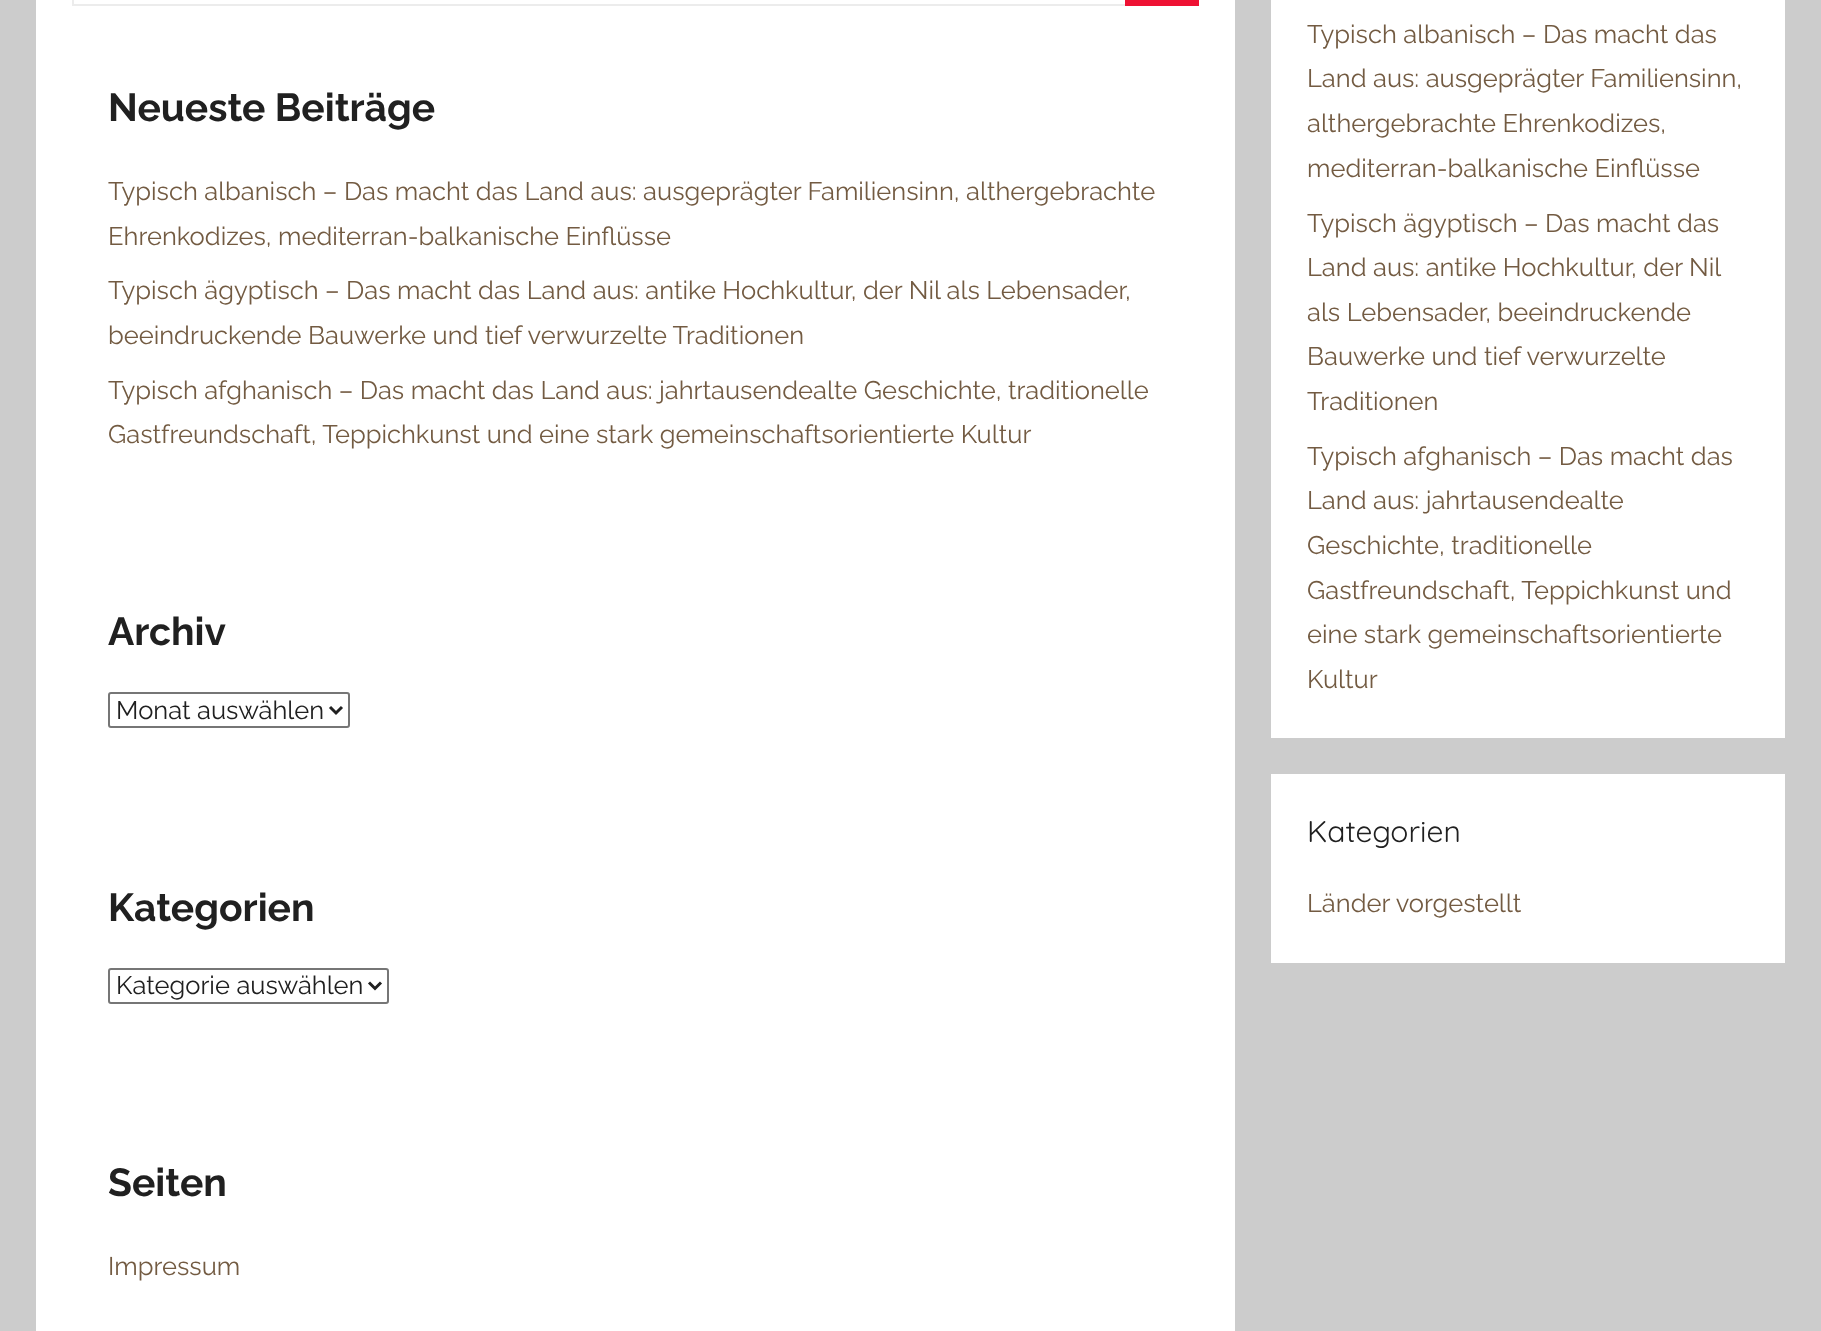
<!DOCTYPE html>
<meta charset="utf-8">
<style>body { margin: 0 } canvas { display: block }</style>
<canvas id="canvas" width="1821" height="1331"></canvas>
<script type="module">
  const canvas = document.getElementById("canvas");
  const ctx = canvas.getContext("2d");
  ctx.miterLimit = 4;
  ctx.fontKerning = "normal";

  ctx.fillStyle = "#cccccc";
  ctx.fillRect(0, 0, 1821, 1331);
  ctx.fillStyle = "#ffffff";
  ctx.fillRect(36, 0, 1199, 1331);
  ctx.strokeStyle = "#ececec";
  ctx.lineWidth = 2;
  ctx.strokeRect(73, -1, 1125, 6);
  ctx.fillStyle = "#ee1133";
  ctx.fillRect(1125, 0, 74, 6);
  ctx.font = "bold 39px Raleway";
  ctx.fillStyle = "#202020";
  ctx.fillText("Neueste Beiträge", 108, 121);
  ctx.font = "25.5px Raleway";
  ctx.fillStyle = "#735b42";
  ctx.fillText("Typisch albanisch – Das macht das Land aus: ausgeprägter Familiensinn, althergebrachte", 108, 200);
  ctx.fillText("Ehrenkodizes, mediterran-balkanische Einflüsse", 108, 245);
  ctx.fillText("Typisch ägyptisch – Das macht das Land aus: antike Hochkultur, der Nil als Lebensader,", 108, 299);
  ctx.fillText("beeindruckende Bauwerke und tief verwurzelte Traditionen", 108, 344);
  ctx.fillText("Typisch afghanisch – Das macht das Land aus: jahrtausendealte Geschichte, traditionelle", 108, 399);
  ctx.fillText("Gastfreundschaft, Teppichkunst und eine stark gemeinschaftsorientierte Kultur", 108, 443);
  ctx.font = "bold 39px Raleway";
  ctx.fillStyle = "#202020";
  ctx.fillText("Archiv", 108, 645);
  ctx.beginPath();
  ctx.roundRect(109, 693, 240, 34, 2);
  ctx.strokeStyle = "#767676";
  ctx.stroke();
  ctx.beginPath();
  ctx.moveTo(330, 707);
  ctx.lineTo(336, 713);
  ctx.lineTo(342, 707);
  ctx.strokeStyle = "#202020";
  ctx.lineWidth = 3;
  ctx.stroke();
  ctx.font = "25.5px Raleway";
  ctx.fillText("Monat auswählen", 116, 719);
  ctx.font = "bold 39px Raleway";
  ctx.fillText("Kategorien", 108, 921);
  ctx.beginPath();
  ctx.roundRect(109, 969, 279, 34, 2);
  ctx.strokeStyle = "#767676";
  ctx.lineWidth = 2;
  ctx.stroke();
  ctx.beginPath();
  ctx.moveTo(369, 982.5);
  ctx.lineTo(375, 988.5);
  ctx.lineTo(381, 982.5);
  ctx.strokeStyle = "#202020";
  ctx.lineWidth = 3;
  ctx.stroke();
  ctx.font = "25.5px Raleway";
  ctx.fillText("Kategorie auswählen", 116, 994);
  ctx.font = "bold 39px Raleway";
  ctx.fillText("Seiten", 108, 1196);
  ctx.font = "25.5px Raleway";
  ctx.fillStyle = "#735b42";
  ctx.fillText("Impressum", 108, 1275);
  ctx.fillStyle = "#ffffff";
  ctx.fillRect(1271, 0, 514, 738);
  ctx.fillStyle = "#735b42";
  ctx.fillText("Typisch albanisch – Das macht das", 1307, 43);
  ctx.fillText("Land aus: ausgeprägter Familiensinn,", 1307, 87);
  ctx.fillText("althergebrachte Ehrenkodizes,", 1307, 132);
  ctx.fillText("mediterran-balkanische Einflüsse", 1307, 177);
  ctx.fillText("Typisch ägyptisch – Das macht das", 1307, 232);
  ctx.fillText("Land aus: antike Hochkultur, der Nil", 1307, 276);
  ctx.fillText("als Lebensader, beeindruckende", 1307, 321);
  ctx.fillText("Bauwerke und tief verwurzelte", 1307, 365);
  ctx.fillText("Traditionen", 1307, 410);
  ctx.fillText("Typisch afghanisch – Das macht das", 1307, 465);
  ctx.fillText("Land aus: jahrtausendealte", 1307, 509);
  ctx.fillText("Geschichte, traditionelle", 1307, 554);
  ctx.fillText("Gastfreundschaft, Teppichkunst und", 1307, 599);
  ctx.fillText("eine stark gemeinschaftsorientierte", 1307, 643);
  ctx.fillText("Kultur", 1307, 688);
  ctx.fillStyle = "#ffffff";
  ctx.fillRect(1271, 774, 514, 189);
  ctx.font = "30px Quicksand";
  ctx.fillStyle = "#202020";
  ctx.fillText("Kategorien", 1307, 842);
  ctx.font = "25.5px Raleway";
  ctx.fillStyle = "#735b42";
  ctx.fillText("Länder vorgestellt", 1307, 912);
</script>
